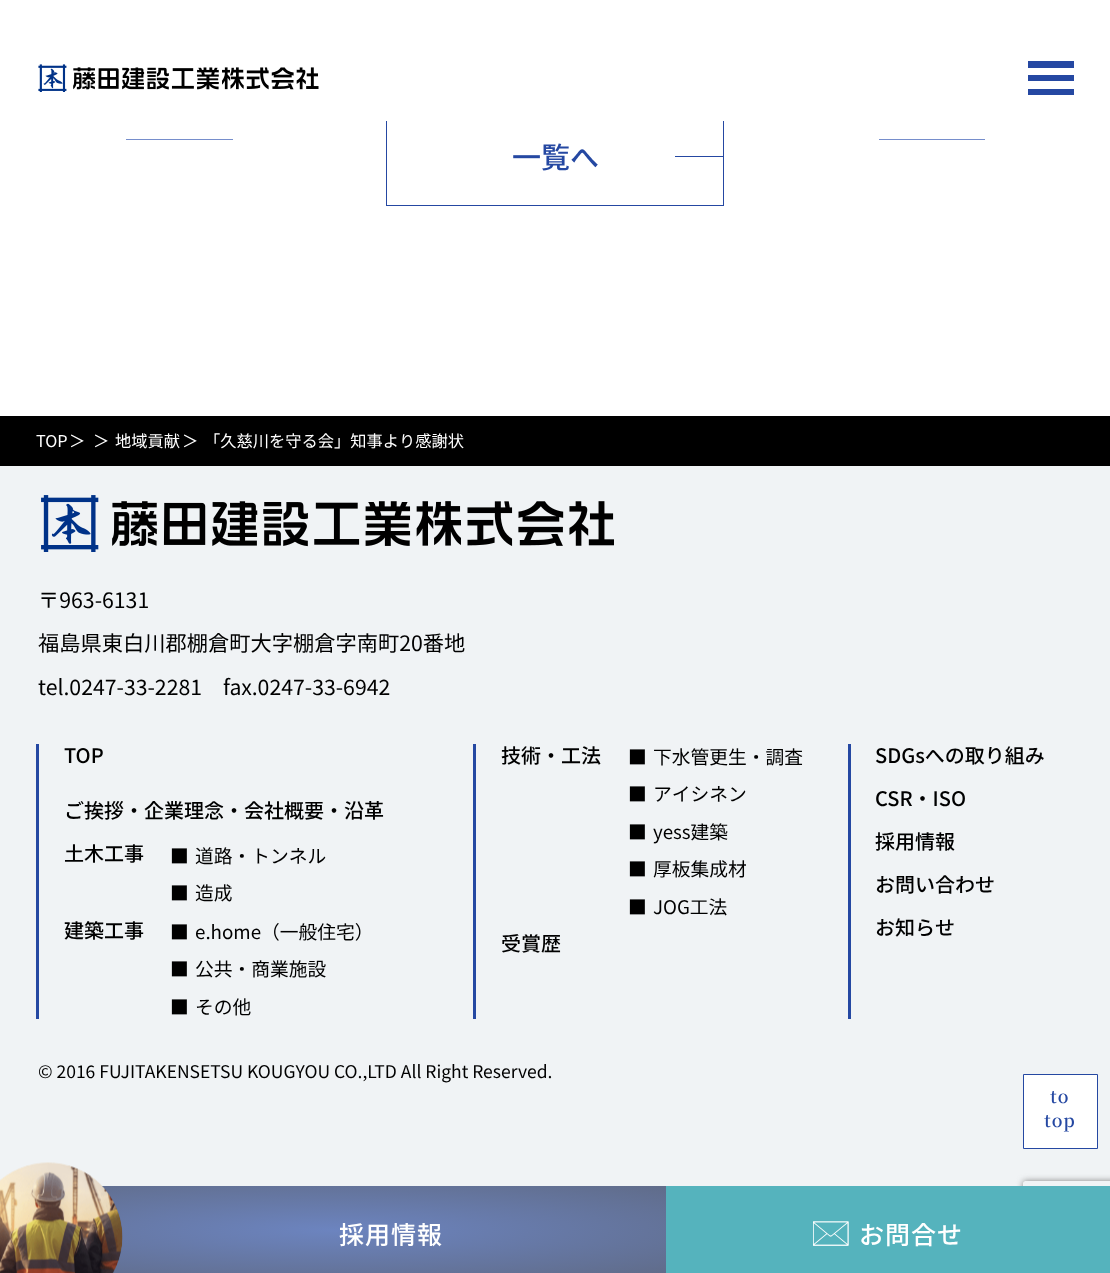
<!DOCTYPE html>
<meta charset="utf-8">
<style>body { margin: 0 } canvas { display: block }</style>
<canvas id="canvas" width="1110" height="1273"></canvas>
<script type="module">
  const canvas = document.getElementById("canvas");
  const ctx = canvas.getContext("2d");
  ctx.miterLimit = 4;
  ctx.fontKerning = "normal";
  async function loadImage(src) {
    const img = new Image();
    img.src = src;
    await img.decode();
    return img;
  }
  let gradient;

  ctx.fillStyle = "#ffffff";
  ctx.fillRect(0, 0, 1110, 1273);
  ctx.strokeStyle = "#2548a2";
  ctx.strokeRect(386.5, 106.5, 337, 99);
  ctx.fillRect(386, 106, 338, 15);
  ctx.drawImage(await loadImage("img1.png"), 38, 64, 281, 28);
  ctx.fillStyle = "#2548a2";
  ctx.fillRect(1028, 75, 46, 6);
  ctx.fillRect(1028, 61, 46, 7);
  ctx.fillRect(1028, 89, 46, 6);
  ctx.fillStyle = "#768ecc";
  ctx.fillRect(126, 139, 107, 1);
  ctx.fillRect(879, 139, 106, 1);
  ctx.font = "500 29px Noto Sans JP";
  ctx.fillStyle = "#2548a2";
  ctx.fillText("一覧へ", 512, 168);
  ctx.fillRect(675, 156, 48, 1);
  ctx.fillStyle = "#000000";
  ctx.fillRect(0, 416, 1110, 50);
  ctx.font = "16.25px Noto Sans JP";
  ctx.fillStyle = "#ffffff";
  ctx.fillText("TOP", 36, 447);
  ctx.fillText("＞", 69, 447);
  ctx.fillText("＞", 93, 447);
  ctx.fillText("地域貢献", 115, 447);
  ctx.fillText("＞", 182, 447);
  ctx.fillText("「久慈川を守る会」知事より感謝状", 204, 447);
  ctx.fillStyle = "#f0f3f5";
  ctx.fillRect(0, 466, 1110, 720);
  ctx.drawImage(await loadImage("img2.png"), 41, 495, 573, 57);
  ctx.font = "21.25px Noto Sans JP";
  ctx.fillStyle = "#000000";
  ctx.fillText("〒963-6131", 38, 608);
  ctx.fillText("福島県東白川郡棚倉町大字棚倉字南町20番地", 38, 651);
  ctx.fillText("tel.0247-33-2281", 38, 695);
  ctx.fillText("fax.0247-33-6942", 223, 695);
  ctx.fillStyle = "#2548a2";
  ctx.fillRect(36, 744, 3, 275);
  ctx.font = "500 20px Noto Sans JP";
  ctx.fillStyle = "#000000";
  ctx.fillText("TOP", 64, 763);
  ctx.fillText("ご挨拶・企業理念・会社概要・沿革", 64, 818);
  ctx.fillText("土木工事", 64, 861);
  ctx.font = "18.75px Noto Sans JP";
  ctx.fillText("■", 170, 863);
  ctx.fillText("道路・トンネル", 195, 863);
  ctx.fillText("■", 170, 900);
  ctx.fillText("造成", 195, 900);
  ctx.font = "500 20px Noto Sans JP";
  ctx.fillText("建築工事", 64, 938);
  ctx.font = "18.75px Noto Sans JP";
  ctx.fillText("■", 170, 939);
  ctx.fillText("e.home（一般住宅）", 195, 939);
  ctx.fillText("■", 170, 976);
  ctx.fillText("公共・商業施設", 195, 976);
  ctx.fillText("■", 170, 1014);
  ctx.fillText("その他", 195, 1014);
  ctx.fillStyle = "#2548a2";
  ctx.fillRect(473, 744, 3, 275);
  ctx.font = "500 20px Noto Sans JP";
  ctx.fillStyle = "#000000";
  ctx.fillText("技術・工法", 501, 763);
  ctx.font = "18.75px Noto Sans JP";
  ctx.fillText("■", 628, 764);
  ctx.fillText("下水管更生・調査", 653, 764);
  ctx.fillText("■", 628, 801);
  ctx.fillText("アイシネン", 653, 801);
  ctx.fillText("■", 628, 839);
  ctx.fillText("yess建築", 653, 839);
  ctx.fillText("■", 628, 876);
  ctx.fillText("厚板集成材", 653, 876);
  ctx.fillText("■", 628, 914);
  ctx.fillText("JOG工法", 653, 914);
  ctx.font = "500 20px Noto Sans JP";
  ctx.fillText("受賞歴", 501, 951);
  ctx.fillStyle = "#2548a2";
  ctx.fillRect(848, 744, 3, 275);
  ctx.fillStyle = "#000000";
  ctx.fillText("SDGsへの取り組み", 875, 763);
  ctx.fillText("CSR・ISO", 875, 806);
  ctx.fillText("採用情報", 875, 849);
  ctx.fillText("お問い合わせ", 875, 892);
  ctx.fillText("お知らせ", 875, 935);
  ctx.font = "17.5px Noto Sans JP";
  ctx.fillText("© 2016 FUJITAKENSETSU KOUGYOU CO.,LTD All Right Reserved.", 38, 1078);
  ctx.fillStyle = "#ffffff";
  ctx.beginPath();
  ctx.rect(1023.5, 1074.5, 74, 74);
  ctx.fill();
  ctx.stroke();
  ctx.letterSpacing = "1px";
  ctx.font = "600 17.5px Noto Serif JP";
  ctx.fillStyle = "#2548a2";
  ctx.fillText("to", 1050, 1103);
  ctx.fillText("top", 1044, 1127);
  gradient = ctx.createRadialGradient(333, 9344.03, 0, 333, 9344.03, 471);
  gradient.addColorStop(0, "#6c84bf");
  gradient.addColorStop(1, "#606c8a");
  ctx.fillStyle = gradient;
  ctx.beginPath();
  ctx.rect(102, 1186, 564, 87);
  ctx.save();
  ctx.clip();
  ctx.scale(1, 62 / 471);
  ctx.fillRect(0, 0, 1110, 9671);
  ctx.restore();
  ctx.drawImage(await loadImage("img3.png"), 0, 1162, 123, 111);
  ctx.font = "500 25px Noto Sans JP";
  ctx.fillStyle = "#ffffff";
  ctx.fillText("採用情報", 339, 1244);
  ctx.save();
  ctx.beginPath();
  ctx.moveTo(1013, 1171);
  ctx.lineTo(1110, 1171);
  ctx.lineTo(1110, 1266);
  ctx.lineTo(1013, 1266);
  ctx.closePath();
  ctx.moveTo(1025.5, 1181);
  ctx.lineTo(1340.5, 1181);
  ctx.bezierCurveTo(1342, 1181, 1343, 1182, 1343, 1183.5);
  ctx.lineTo(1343, 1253.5);
  ctx.bezierCurveTo(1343, 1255, 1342, 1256, 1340.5, 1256);
  ctx.lineTo(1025.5, 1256);
  ctx.bezierCurveTo(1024, 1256, 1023, 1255, 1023, 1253.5);
  ctx.lineTo(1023, 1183.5);
  ctx.bezierCurveTo(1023, 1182, 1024, 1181, 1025.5, 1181);
  ctx.closePath();
  ctx.clip("evenodd");
  ctx.fillStyle = "#808080";
  ctx.filter = "blur(3px)";
  ctx.beginPath();
  ctx.roundRect(1023, 1181, 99, 75, 2.5);
  ctx.fill();
  ctx.filter = "none";
  ctx.restore();
  ctx.fillStyle = "#55b3bd";
  ctx.fillRect(666, 1186, 444, 87);
  ctx.drawImage(await loadImage("img4.png"), 813, 1221, 36, 25);
  ctx.fillStyle = "#ffffff";
  ctx.fillText("お問合せ", 859, 1244);
</script>
